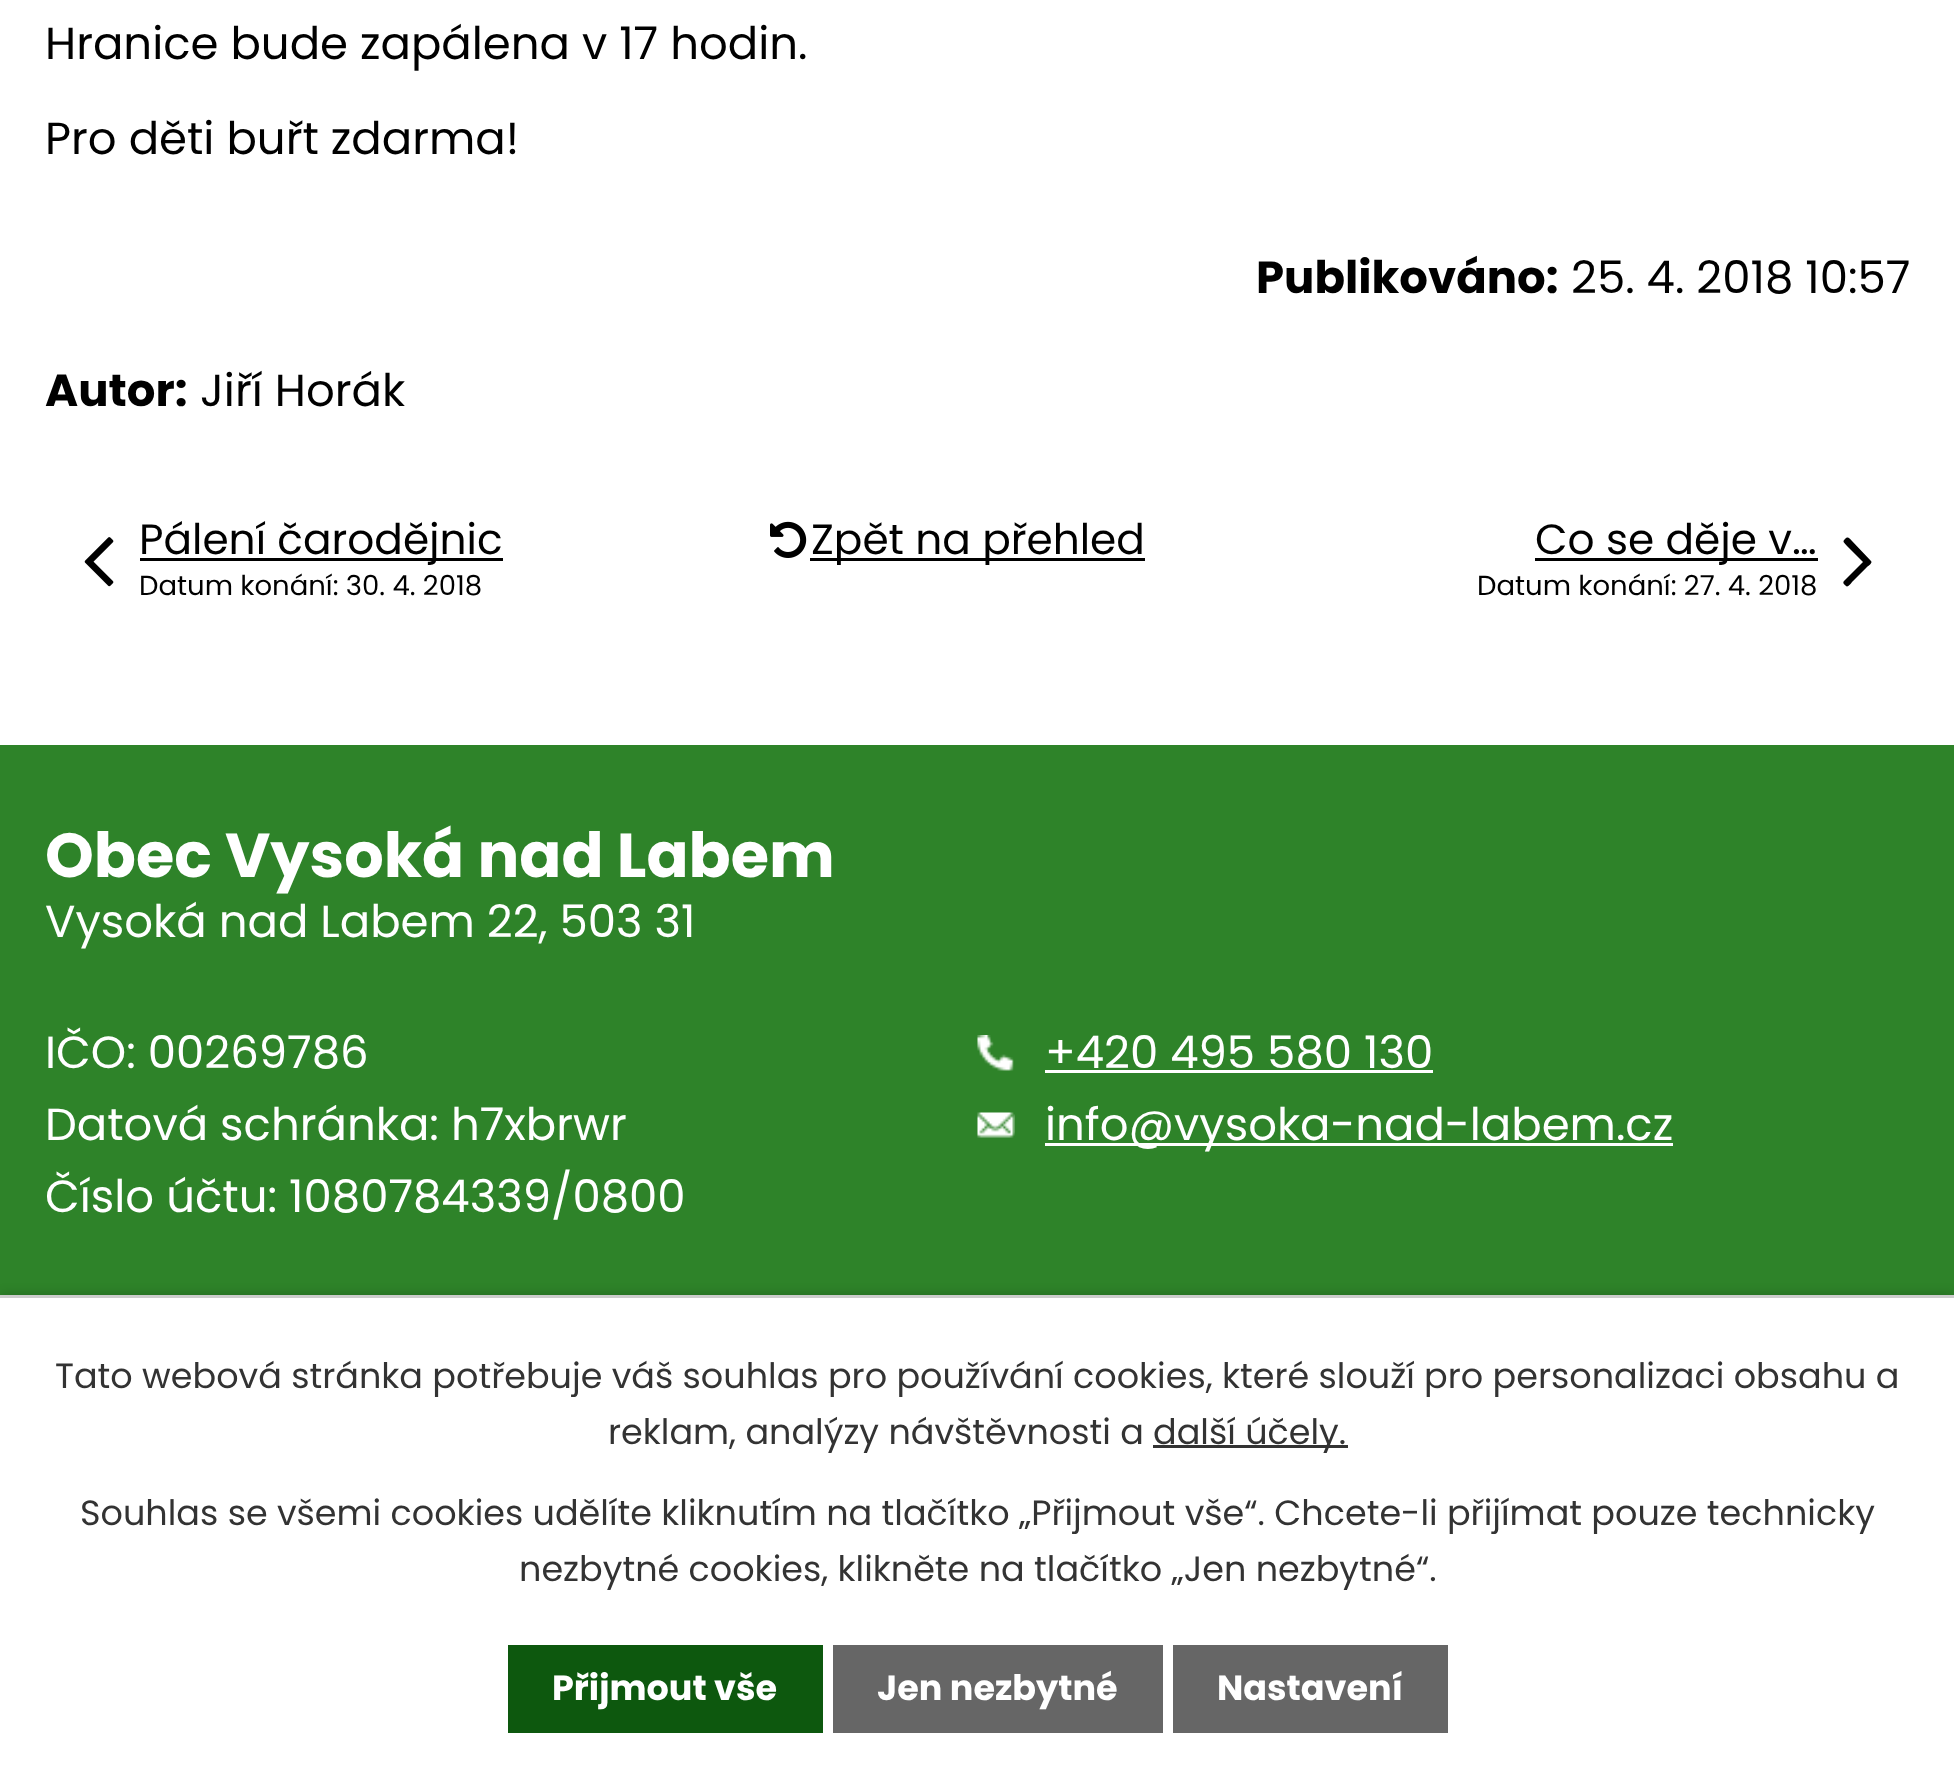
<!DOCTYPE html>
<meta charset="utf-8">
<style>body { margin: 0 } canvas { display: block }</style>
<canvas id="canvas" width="1954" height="1778"></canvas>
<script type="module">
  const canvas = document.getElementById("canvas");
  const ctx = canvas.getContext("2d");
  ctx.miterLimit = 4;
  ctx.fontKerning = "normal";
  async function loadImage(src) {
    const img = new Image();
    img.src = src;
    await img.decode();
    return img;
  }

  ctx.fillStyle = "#ffffff";
  ctx.fillRect(0, 0, 1954, 1778);
  ctx.font = "45px Poppins";
  ctx.fillStyle = "#000000";
  ctx.fillText("Hranice bude zapálena v 17 hodin.", 45, 59);
  ctx.fillText("Pro děti buřt zdarma!", 45, 154);
  ctx.font = "bold 45px Poppins";
  ctx.fillText("Publikováno:", 1256, 293);
  ctx.font = "45px Poppins";
  ctx.fillText("25. 4. 2018 10:57", 1571, 293);
  ctx.font = "bold 45px Poppins";
  ctx.fillText("Autor:", 45, 406);
  ctx.font = "45px Poppins";
  ctx.fillText("Jiří Horák", 200, 406);
  ctx.drawImage(await loadImage("img1.png"), 84, 537, 30, 50);
  ctx.fillRect(140, 558, 363, 3);
  ctx.font = "42.25px Poppins";
  ctx.fillText("Pálení čarodějnic", 139, 554);
  ctx.font = "27.5px Poppins";
  ctx.fillText("Datum konání: 30. 4. 2018", 139, 595);
  ctx.drawImage(await loadImage("img2.png"), 770, 521, 37, 37);
  ctx.fillRect(810, 558, 335, 3);
  ctx.font = "42.25px Poppins";
  ctx.fillText("Zpět na přehled", 811, 554);
  ctx.fillRect(1535, 558, 283, 3);
  ctx.fillText("Co se děje v…", 1535, 554);
  ctx.font = "27.5px Poppins";
  ctx.fillText("Datum konání: 27. 4. 2018", 1477, 595);
  ctx.beginPath();
  ctx.moveTo(1871, 561);
  ctx.bezierCurveTo(1873, 563, 1868, 566, 1867, 567);
  ctx.lineTo(1852, 582);
  ctx.bezierCurveTo(1852, 582, 1848, 588, 1846, 586);
  ctx.bezierCurveTo(1845, 585, 1842, 583, 1844, 581);
  ctx.lineTo(1863, 562);
  ctx.lineTo(1847, 546);
  ctx.bezierCurveTo(1844, 542, 1842, 542, 1845, 539);
  ctx.bezierCurveTo(1848, 536, 1849, 538, 1852, 541);
  ctx.closePath();
  ctx.fill();
  ctx.fillStyle = "#2e8329";
  ctx.fillRect(0, 745, 1954, 550);
  ctx.font = "bold 62.1px Poppins";
  ctx.fillStyle = "#ffffff";
  ctx.fillText("Obec Vysoká nad Labem", 45, 877);
  ctx.font = "45px Poppins";
  ctx.fillText("Vysoká nad Labem 22, 503 31", 45, 937);
  ctx.fillText("IČO: 00269786", 45, 1068);
  ctx.fillText("Datová schránka: h7xbrwr", 45, 1140);
  ctx.fillText("Číslo účtu: 1080784339/0800", 45, 1212);
  ctx.drawImage(await loadImage("img3.png"), 977, 1035, 37, 36);
  ctx.fillText("+420 495 580 130", 1045, 1068);
  ctx.fillRect(1045, 1070, 388, 3);
  ctx.drawImage(await loadImage("img4.png"), 977, 1112, 38, 26);
  ctx.fillRect(1045, 1143, 628, 3);
  ctx.fillText("info@vysoka-nad-labem.cz", 1045, 1140);
  ctx.fillStyle = "rgba(0, 0, 0, 0.2)";
  ctx.filter = "blur(6px)";
  ctx.beginPath();
  ctx.rect(0, 1295, 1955, 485);
  ctx.fill();
  ctx.filter = "none";
  ctx.fillStyle = "#ffffff";
  ctx.fillRect(0, 1298, 1954, 480);
  ctx.fillStyle = "#cccccc";
  ctx.fillRect(0, 1295, 1954, 3);
  ctx.font = "35px Poppins";
  ctx.fillStyle = "#333333";
  ctx.fillText("Tato webová stránka potřebuje váš souhlas pro používání cookies, které slouží pro personalizaci obsahu a", 55, 1388);
  ctx.fillText("reklam, analýzy návštěvnosti a", 608, 1444);
  ctx.fillRect(1153, 1445, 195, 3);
  ctx.fillText("další účely.", 1153, 1444);
  ctx.fillText("Souhlas se všemi cookies udělíte kliknutím na tlačítko „Přijmout vše“. Chcete-li přijímat pouze technicky", 80, 1525);
  ctx.fillText("nezbytné cookies, klikněte na tlačítko „Jen nezbytné“.", 519, 1581);
  ctx.fillStyle = "#0d580e";
  ctx.fillRect(508, 1645, 315, 88);
  ctx.font = "bold 35px Poppins";
  ctx.fillStyle = "#ffffff";
  ctx.fillText("Přijmout vše", 552, 1700);
  ctx.fillStyle = "#666666";
  ctx.fillRect(833, 1645, 330, 88);
  ctx.fillStyle = "#ffffff";
  ctx.fillText("Jen nezbytné", 877, 1700);
  ctx.fillStyle = "#666666";
  ctx.fillRect(1173, 1645, 275, 88);
  ctx.fillStyle = "#ffffff";
  ctx.fillText("Nastavení", 1217, 1700);
</script>
